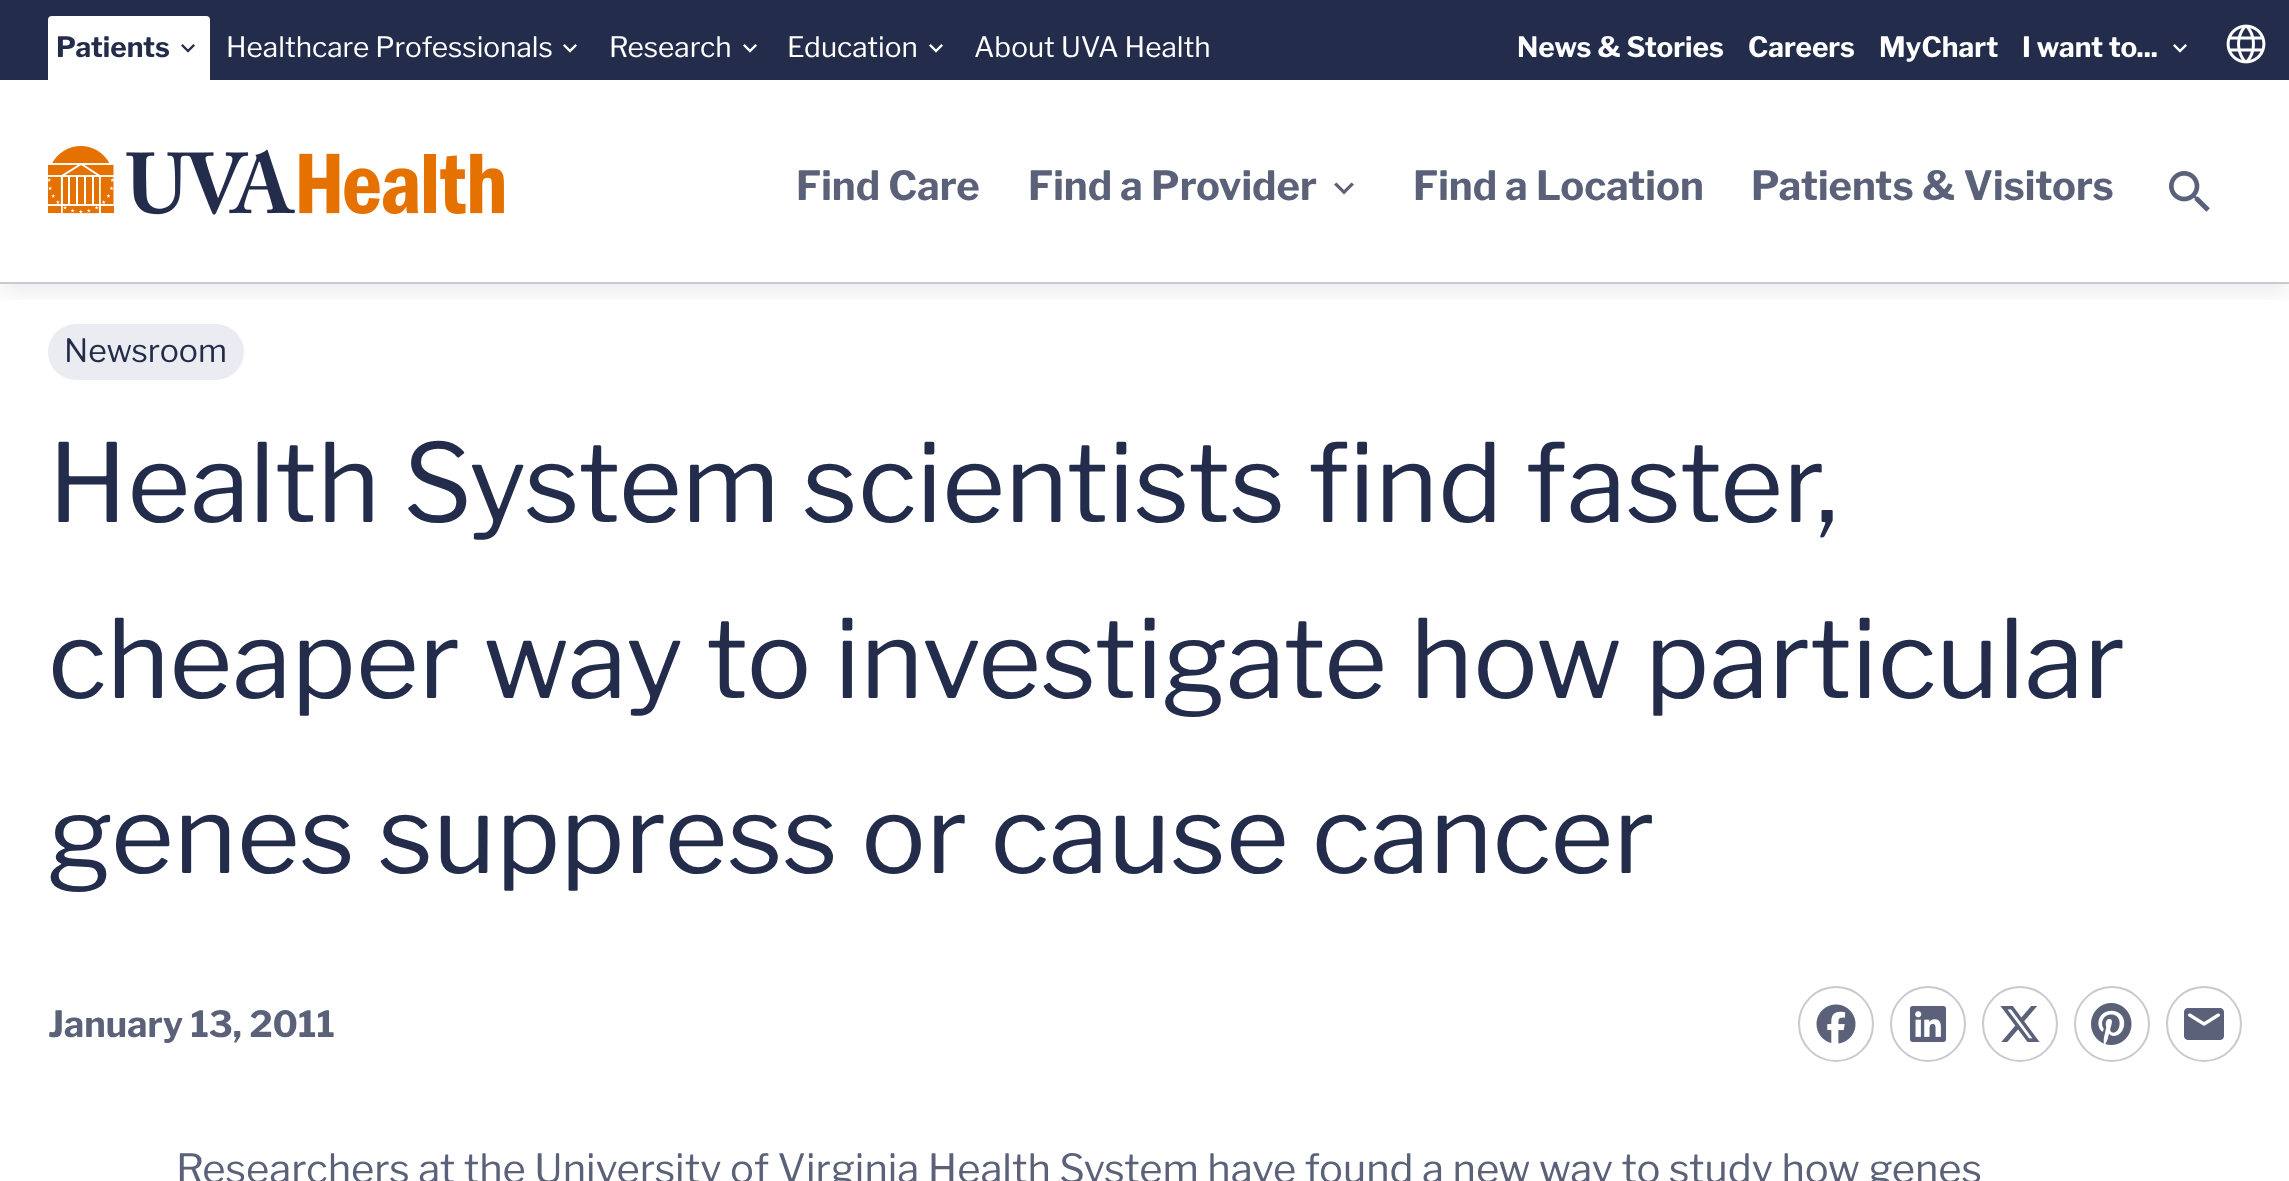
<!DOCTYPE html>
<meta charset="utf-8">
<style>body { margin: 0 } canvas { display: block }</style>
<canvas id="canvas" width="2289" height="1181"></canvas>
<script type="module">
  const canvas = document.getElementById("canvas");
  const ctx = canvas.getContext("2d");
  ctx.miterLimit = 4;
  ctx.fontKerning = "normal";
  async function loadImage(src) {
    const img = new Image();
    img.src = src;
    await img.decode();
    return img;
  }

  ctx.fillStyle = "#ffffff";
  ctx.fillRect(0, 0, 2289, 1181);
  ctx.fillStyle = "#232d4b";
  ctx.fillRect(0, 0, 2289, 80);
  ctx.fillStyle = "#ffffff";
  ctx.beginPath();
  ctx.roundRect(48, 16, 162, 64, [4, 4, 0, 0]);
  ctx.fill();
  ctx.font = "bold 28px Libre Franklin";
  ctx.fillStyle = "#232d4b";
  ctx.fillText("Patients", 56, 57);
  ctx.drawImage(await loadImage("img1.png"), 181, 44, 14, 9);
  ctx.font = "28px Libre Franklin";
  ctx.fillStyle = "#ffffff";
  ctx.fillText("Healthcare Professionals", 226, 57);
  ctx.drawImage(await loadImage("img2.png"), 563, 44, 14, 9);
  ctx.fillText("Research", 609, 57);
  ctx.drawImage(await loadImage("img2.png"), 743, 44, 14, 9);
  ctx.fillText("Education", 787, 57);
  ctx.drawImage(await loadImage("img2.png"), 929, 44, 14, 9);
  ctx.fillText("About UVA Health", 974, 57);
  ctx.font = "bold 28px Libre Franklin";
  ctx.fillText("News & Stories", 1517, 57);
  ctx.fillText("Careers", 1748, 57);
  ctx.fillText("MyChart", 1879, 57);
  ctx.fillText("I want to...", 2022, 57);
  ctx.drawImage(await loadImage("img2.png"), 2173, 44, 14, 9);
  ctx.drawImage(await loadImage("img3.png"), 2226, 24, 40, 40);
  ctx.fillStyle = "#eaecf1";
  ctx.beginPath();
  ctx.roundRect(48, 324, 196, 56, 28);
  ctx.fill();
  ctx.save();
  ctx.beginPath();
  ctx.rect(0, 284, 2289, 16);
  ctx.clip();
  ctx.fillStyle = "rgba(0, 3, 38, 0.08)";
  ctx.filter = "blur(12.5px)";
  ctx.beginPath();
  ctx.rect(0, 88, 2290, 204);
  ctx.fill();
  ctx.filter = "none";
  ctx.restore();
  ctx.fillStyle = "#c8cad2";
  ctx.fillRect(0, 282, 2289, 2);
  ctx.drawImage(await loadImage("img4.png"), 48, 146, 456, 69);
  ctx.font = "bold 40px Libre Franklin";
  ctx.fillStyle = "#5a6178";
  ctx.fillText("Find Care", 796, 200);
  ctx.fillText("Find a Provider", 1028, 200);
  ctx.beginPath();
  ctx.moveTo(1336.5, 182.5);
  ctx.lineTo(1344, 190);
  ctx.lineTo(1351.5, 182.5);
  ctx.lineTo(1354, 184.5);
  ctx.lineTo(1344, 194.5);
  ctx.lineTo(1334, 184.5);
  ctx.closePath();
  ctx.fill();
  ctx.fillText("Find a Location", 1413, 200);
  ctx.fillText("Patients & Visitors", 1751, 200);
  ctx.drawImage(await loadImage("img5.png"), 2169, 171, 41, 41);
  ctx.font = "32px Libre Franklin";
  ctx.fillStyle = "#232d4b";
  ctx.fillText("Newsroom", 64, 362);
  ctx.font = "108px Libre Franklin";
  ctx.fillText("Health System scientists find faster,", 48, 522);
  ctx.fillText("cheaper way to investigate how particular", 48, 698);
  ctx.fillText("genes suppress or cause cancer", 48, 873);
  ctx.font = "bold 36px Libre Franklin";
  ctx.fillStyle = "#5a6178";
  ctx.fillText("January 13, 2011", 48, 1037);
  ctx.beginPath();
  ctx.arc(1836, 1024, 37, 0, Math.PI * 2);
  ctx.strokeStyle = "#c8cad2";
  ctx.lineWidth = 2;
  ctx.stroke();
  ctx.drawImage(await loadImage("img6.png"), 1816, 1004, 40, 40);
  ctx.beginPath();
  ctx.arc(1928, 1024, 37, 0, Math.PI * 2);
  ctx.stroke();
  ctx.drawImage(await loadImage("img7.png"), 1910, 1006, 36, 36);
  ctx.beginPath();
  ctx.arc(2020, 1024, 37, 0, Math.PI * 2);
  ctx.stroke();
  ctx.drawImage(await loadImage("img8.png"), 2000, 1006, 40, 36);
  ctx.beginPath();
  ctx.arc(2112, 1024, 37, 0, Math.PI * 2);
  ctx.stroke();
  ctx.drawImage(await loadImage("img9.png"), 2091, 1003, 41, 42);
  ctx.beginPath();
  ctx.arc(2204, 1024, 37, 0, Math.PI * 2);
  ctx.stroke();
  ctx.drawImage(await loadImage("img10.png"), 2184, 1008, 40, 32);
  ctx.font = "40px Libre Franklin";
  ctx.fillText("Researchers at the University of Virginia Health System have found a new way to study how genes", 176, 1183);
</script>
